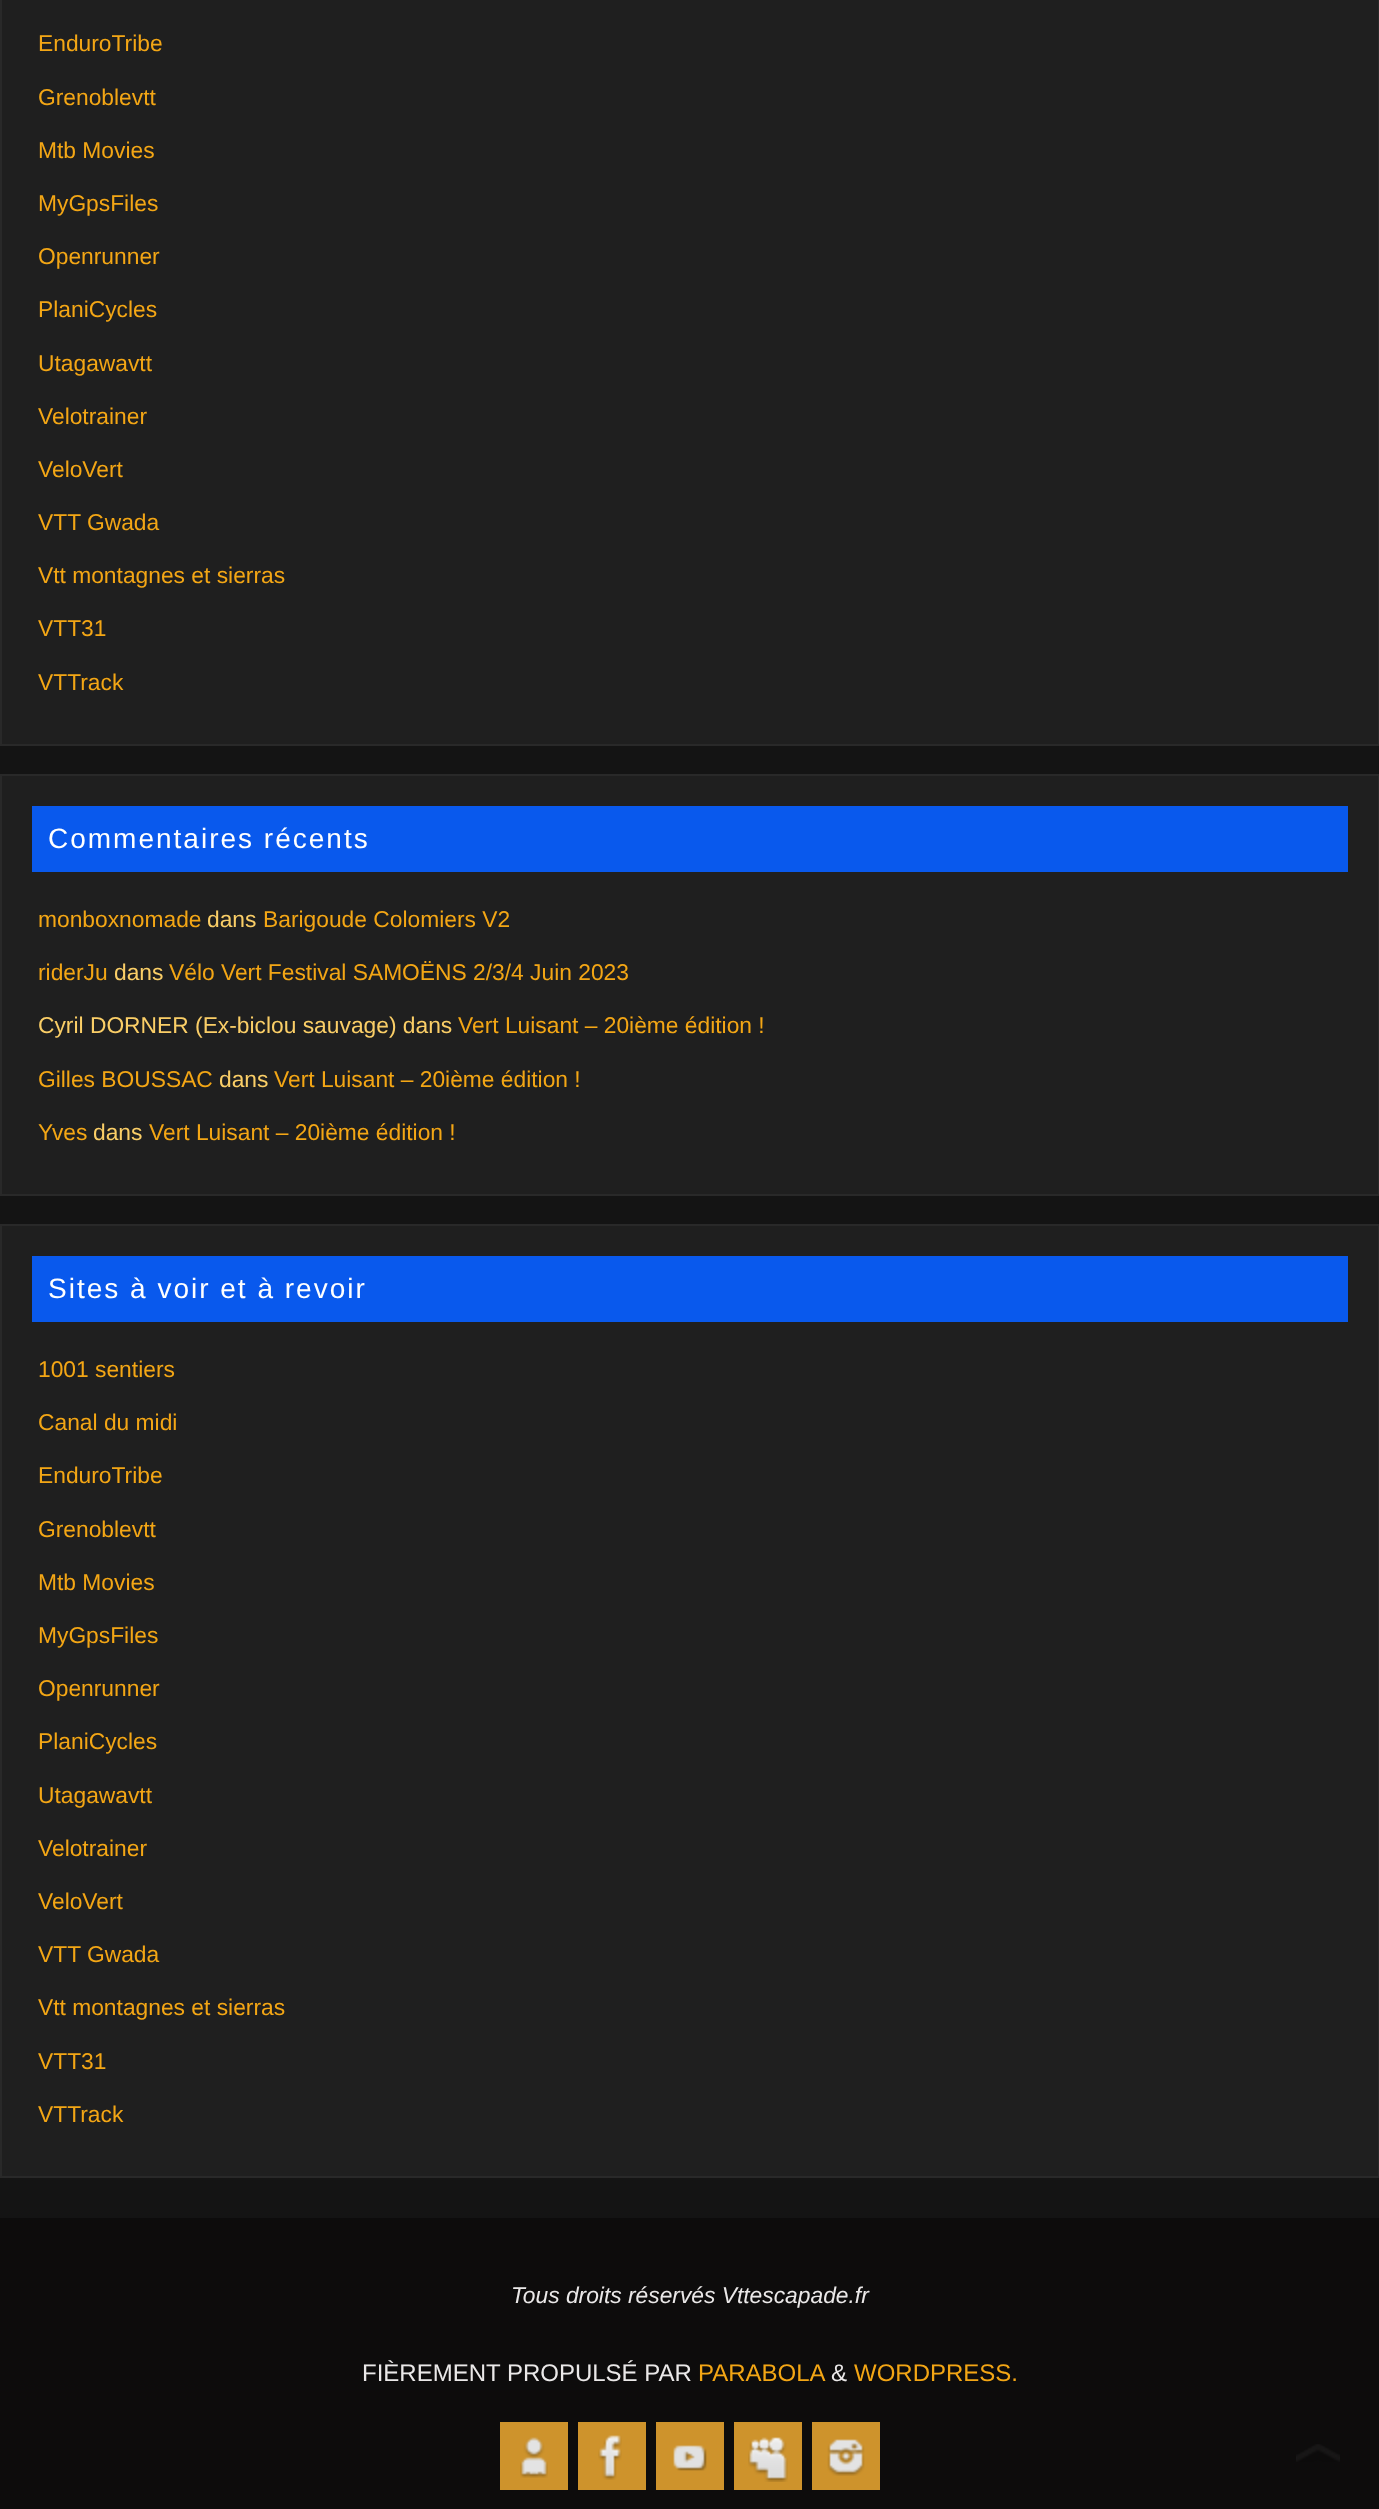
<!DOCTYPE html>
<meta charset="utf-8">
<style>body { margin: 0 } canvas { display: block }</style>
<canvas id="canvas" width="1379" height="2509"></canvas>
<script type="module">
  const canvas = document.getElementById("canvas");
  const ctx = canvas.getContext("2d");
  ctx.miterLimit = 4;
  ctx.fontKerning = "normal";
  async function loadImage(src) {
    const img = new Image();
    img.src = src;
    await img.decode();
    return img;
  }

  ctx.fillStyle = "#141414";
  ctx.fillRect(0, 0, 1379, 2509);
  ctx.fillStyle = "#1f1f1f";
  ctx.beginPath();
  ctx.rect(1, -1, 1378, 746);
  ctx.fill();
  ctx.strokeStyle = "#292929";
  ctx.lineWidth = 2;
  ctx.stroke();
  ctx.font = "22.8px Liberation Sans";
  ctx.fillStyle = "#f3a615";
  ctx.fillText("EnduroTribe", 38, 51);
  ctx.fillText("Grenoblevtt", 38, 105);
  ctx.fillText("Mtb Movies", 38, 158);
  ctx.fillText("MyGpsFiles", 38, 211);
  ctx.fillText("Openrunner", 38, 264);
  ctx.fillText("PlaniCycles", 38, 317);
  ctx.fillText("Utagawavtt", 38, 371);
  ctx.fillText("Velotrainer", 38, 424);
  ctx.fillText("VeloVert", 38, 477);
  ctx.fillText("VTT Gwada", 38, 530);
  ctx.fillText("Vtt montagnes et sierras", 38, 583);
  ctx.fillText("VTT31", 38, 636);
  ctx.fillText("VTTrack", 38, 690);
  ctx.fillStyle = "#1f1f1f";
  ctx.beginPath();
  ctx.rect(1, 775, 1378, 420);
  ctx.fill();
  ctx.stroke();
  ctx.fillStyle = "#0959ed";
  ctx.fillRect(32, 806, 1316, 66);
  ctx.letterSpacing = "2px";
  ctx.font = "28px Liberation Sans";
  ctx.fillStyle = "#ffffff";
  ctx.fillText("Commentaires récents", 48, 848);
  ctx.letterSpacing = "0px";
  ctx.font = "22.8px Liberation Sans";
  ctx.fillStyle = "#f3a615";
  ctx.fillText("monboxnomade", 38, 927);
  ctx.fillStyle = "#face67";
  ctx.fillText("dans", 207, 927);
  ctx.fillStyle = "#f3a615";
  ctx.fillText("Barigoude Colomiers V2", 263, 927);
  ctx.fillText("riderJu", 38, 980);
  ctx.fillStyle = "#face67";
  ctx.fillText("dans", 114, 980);
  ctx.fillStyle = "#f3a615";
  ctx.fillText("Vélo Vert Festival SAMOËNS 2/3/4 Juin 2023", 169, 980);
  ctx.fillStyle = "#face67";
  ctx.fillText("Cyril DORNER (Ex-biclou sauvage) dans", 38, 1033);
  ctx.fillStyle = "#f3a615";
  ctx.fillText("Vert Luisant – 20ième édition !", 458, 1033);
  ctx.fillText("Gilles BOUSSAC", 38, 1087);
  ctx.fillStyle = "#face67";
  ctx.fillText("dans", 219, 1087);
  ctx.fillStyle = "#f3a615";
  ctx.fillText("Vert Luisant – 20ième édition !", 274, 1087);
  ctx.fillText("Yves", 38, 1140);
  ctx.fillStyle = "#face67";
  ctx.fillText("dans", 93, 1140);
  ctx.fillStyle = "#f3a615";
  ctx.fillText("Vert Luisant – 20ième édition !", 149, 1140);
  ctx.fillStyle = "#1f1f1f";
  ctx.beginPath();
  ctx.rect(1, 1225, 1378, 952);
  ctx.fill();
  ctx.stroke();
  ctx.fillStyle = "#0959ed";
  ctx.fillRect(32, 1256, 1316, 66);
  ctx.letterSpacing = "2px";
  ctx.font = "28px Liberation Sans";
  ctx.fillStyle = "#ffffff";
  ctx.fillText("Sites à voir et à revoir", 48, 1298);
  ctx.letterSpacing = "0px";
  ctx.font = "22.8px Liberation Sans";
  ctx.fillStyle = "#f3a615";
  ctx.fillText("1001 sentiers", 38, 1377);
  ctx.fillText("Canal du midi", 38, 1430);
  ctx.fillText("EnduroTribe", 38, 1483);
  ctx.fillText("Grenoblevtt", 38, 1537);
  ctx.fillText("Mtb Movies", 38, 1590);
  ctx.fillText("MyGpsFiles", 38, 1643);
  ctx.fillText("Openrunner", 38, 1696);
  ctx.fillText("PlaniCycles", 38, 1749);
  ctx.fillText("Utagawavtt", 38, 1803);
  ctx.fillText("Velotrainer", 38, 1856);
  ctx.fillText("VeloVert", 38, 1909);
  ctx.fillText("VTT Gwada", 38, 1962);
  ctx.fillText("Vtt montagnes et sierras", 38, 2015);
  ctx.fillText("VTT31", 38, 2069);
  ctx.fillText("VTTrack", 38, 2122);
  ctx.fillStyle = "#0d0c0c";
  ctx.fillRect(0, 2218, 1379, 291);
  ctx.font = "italic 22.8px Liberation Sans";
  ctx.fillStyle = "#eae8e8";
  ctx.fillText("Tous droits réservés Vttescapade.fr", 511, 2303);
  ctx.font = "24px Liberation Sans";
  ctx.fillText("FIÈREMENT PROPULSÉ PAR", 362, 2381);
  ctx.fillStyle = "#f3a615";
  ctx.fillText("PARABOLA", 698, 2381);
  ctx.fillStyle = "#eae8e8";
  ctx.fillText("&", 831, 2381);
  ctx.fillStyle = "#f3a615";
  ctx.fillText("WORDPRESS.", 854, 2381);
  ctx.fillStyle = "#ce932c";
  ctx.fillRect(500, 2422, 68, 68);
  ctx.drawImage(await loadImage("img1.png"), 520, 2437, 28, 41);
  ctx.fillRect(578, 2422, 68, 68);
  ctx.drawImage(await loadImage("img2.png"), 598, 2435, 24, 45);
  ctx.fillRect(656, 2422, 68, 68);
  ctx.drawImage(await loadImage("img3.png"), 673, 2445, 34, 26);
  ctx.fillRect(734, 2422, 68, 68);
  ctx.drawImage(await loadImage("img4.png"), 748, 2437, 40, 45);
  ctx.fillRect(812, 2422, 68, 68);
  ctx.drawImage(await loadImage("img5.png"), 827, 2439, 38, 37);
  ctx.drawImage(await loadImage("img6.png"), 1296, 2444, 44, 18);
</script>
